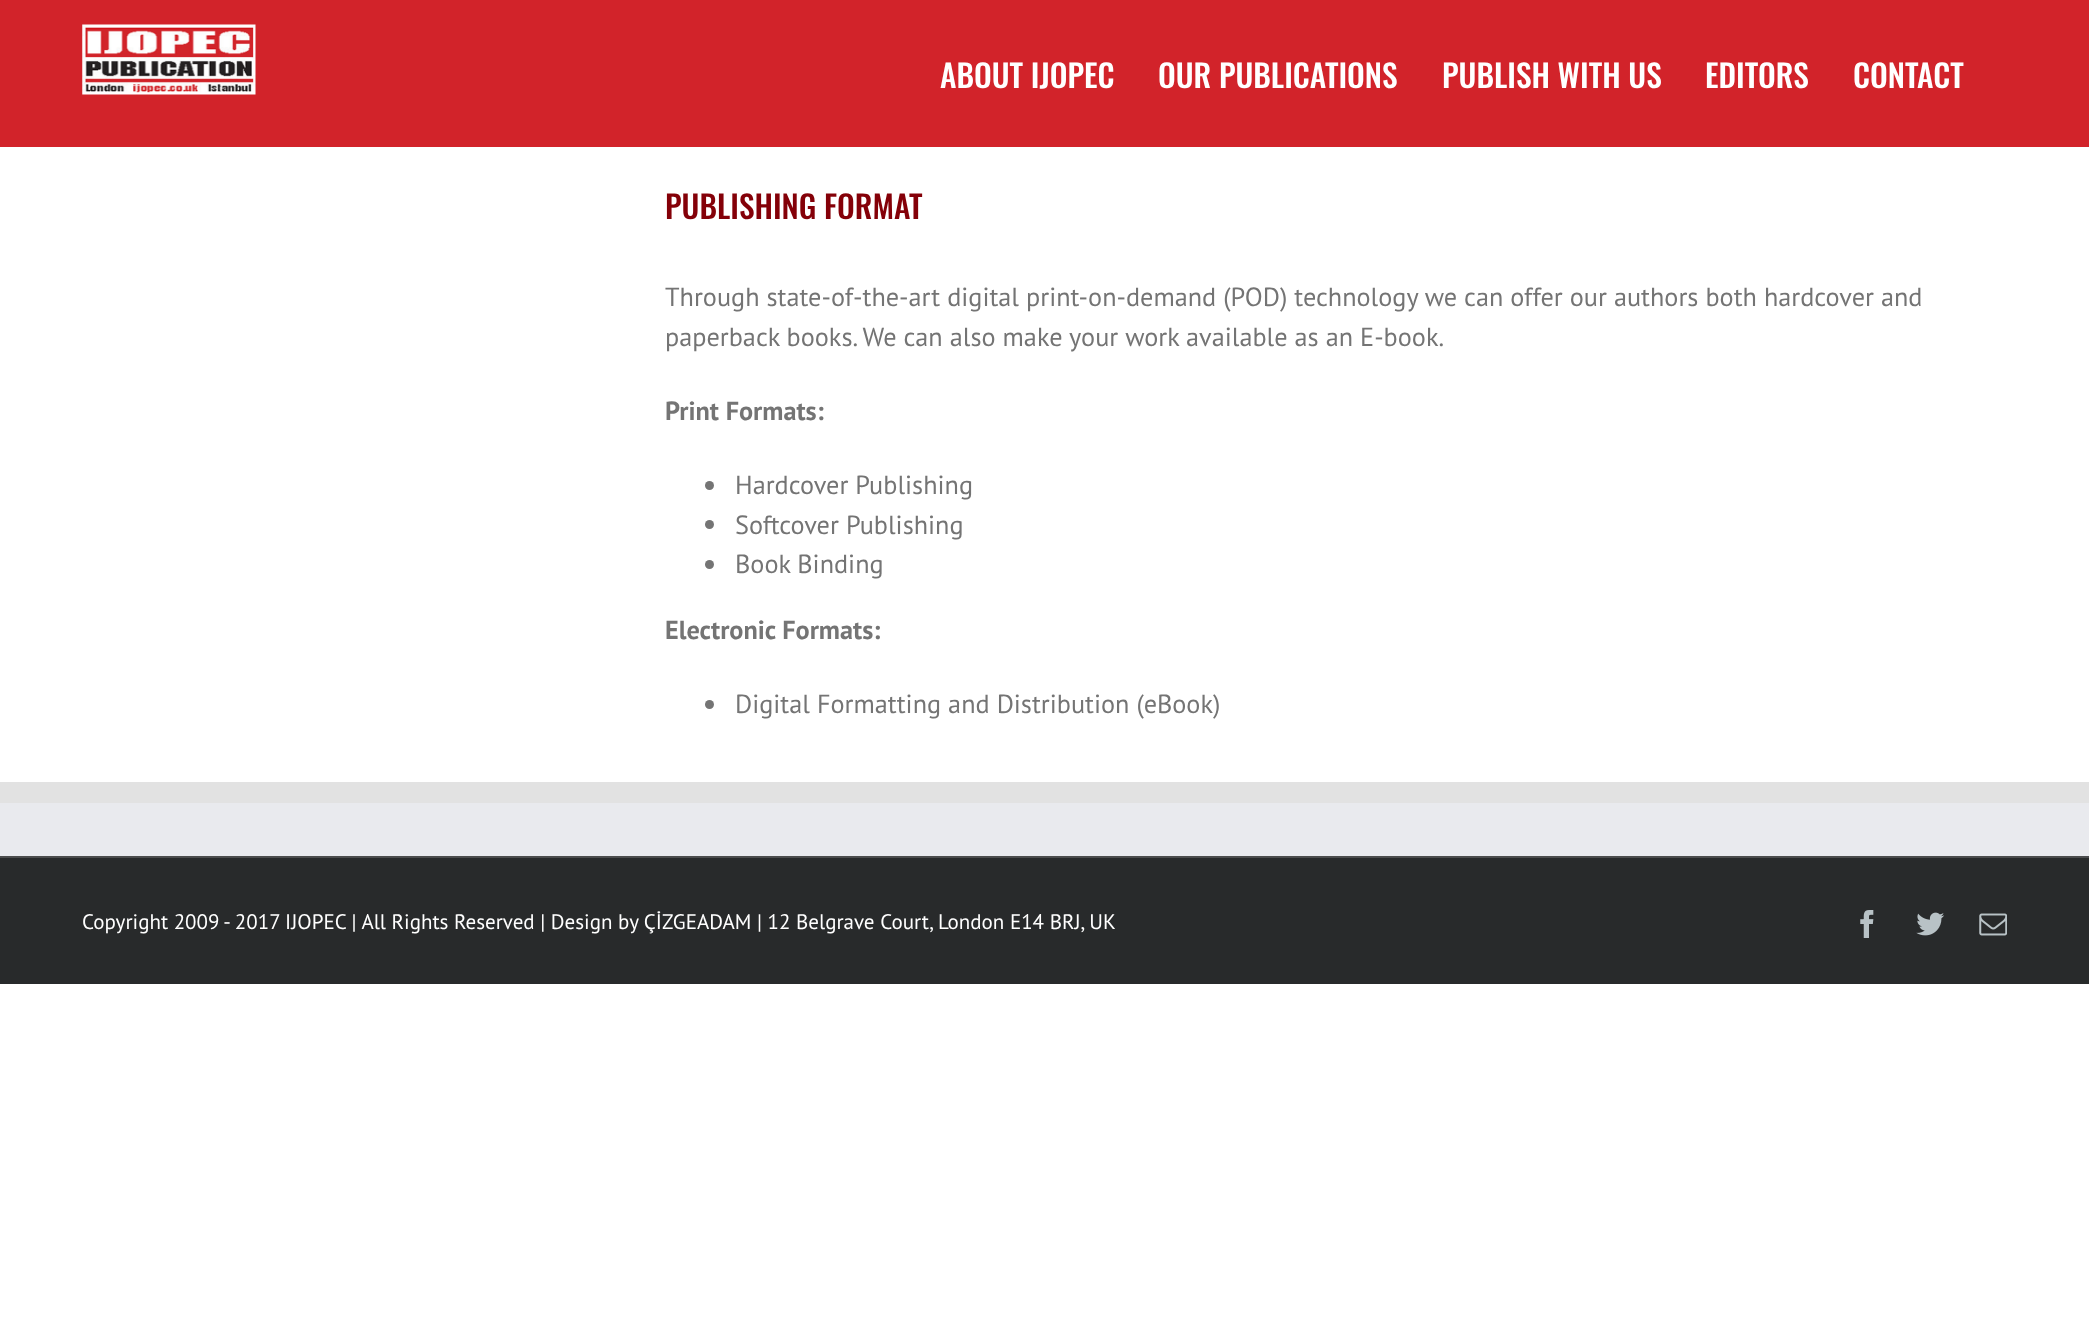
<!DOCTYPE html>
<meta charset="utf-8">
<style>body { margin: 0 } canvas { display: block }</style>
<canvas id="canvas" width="2089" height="1328"></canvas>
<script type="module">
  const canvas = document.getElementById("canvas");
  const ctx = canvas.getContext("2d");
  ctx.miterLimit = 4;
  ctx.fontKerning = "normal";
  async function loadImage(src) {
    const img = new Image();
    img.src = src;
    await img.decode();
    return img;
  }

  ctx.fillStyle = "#ffffff";
  ctx.fillRect(0, 0, 2089, 1328);
  ctx.fillStyle = "#d2232a";
  ctx.fillRect(0, 0, 2089, 147);
  ctx.drawImage(await loadImage("img1.png"), 82, 24, 174, 71);
  ctx.font = "500 31.5px Oswald";
  ctx.fillStyle = "#ffffff";
  ctx.fillText("ABOUT IJOPEC", 940, 88);
  ctx.fillText("OUR PUBLICATIONS", 1158, 88);
  ctx.fillText("PUBLISH WITH US", 1442, 88);
  ctx.fillText("EDITORS", 1705, 88);
  ctx.fillText("CONTACT", 1853, 88);
  ctx.fillStyle = "#840008";
  ctx.fillText("PUBLISHING FORMAT", 665, 219);
  ctx.font = "26.25px PT Sans";
  ctx.fillStyle = "#747474";
  ctx.fillText("Through state-of-the-art digital print-on-demand (POD) technology we can offer our authors both hardcover and", 665, 306);
  ctx.fillText("paperback books. We can also make your work available as an E-book.", 665, 346);
  ctx.font = "bold 26.25px PT Sans";
  ctx.fillText("Print Formats:", 665, 420);
  ctx.beginPath();
  ctx.arc(709.5, 485.5, 4.5, 0, Math.PI * 2);
  ctx.fill();
  ctx.font = "26.25px PT Sans";
  ctx.fillText("Hardcover Publishing", 735, 494);
  ctx.beginPath();
  ctx.arc(709.5, 524.5, 4.5, 0, Math.PI * 2);
  ctx.fill();
  ctx.fillText("Softcover Publishing", 735, 534);
  ctx.beginPath();
  ctx.arc(709.5, 564.5, 4.5, 0, Math.PI * 2);
  ctx.fill();
  ctx.fillText("Book Binding", 735, 573);
  ctx.font = "bold 26.25px PT Sans";
  ctx.fillText("Electronic Formats:", 665, 639);
  ctx.beginPath();
  ctx.arc(709.5, 704.5, 4.5, 0, Math.PI * 2);
  ctx.fill();
  ctx.font = "26.25px PT Sans";
  ctx.fillText("Digital Formatting and Distribution (eBook)", 735, 713);
  ctx.fillStyle = "#e9eaee";
  ctx.fillRect(0, 803, 2089, 53);
  ctx.fillStyle = "#e2e2e2";
  ctx.fillRect(0, 782, 2089, 21);
  ctx.fillStyle = "#282a2b";
  ctx.fillRect(0, 858, 2089, 126);
  ctx.fillStyle = "#4b4c4d";
  ctx.fillRect(0, 856, 2089, 2);
  ctx.font = "21px PT Sans";
  ctx.fillStyle = "#ffffff";
  ctx.fillText("Copyright 2009 - 2017 IJOPEC | All Rights Reserved | Design by ÇİZGEADAM | 12 Belgrave Court, London E14 BRJ, UK", 82, 929);
  ctx.drawImage(await loadImage("img2.png"), 1860, 910, 14, 28);
  ctx.drawImage(await loadImage("img3.png"), 1916, 912, 29, 24);
  ctx.drawImage(await loadImage("img4.png"), 1979, 913, 28, 23);
</script>
